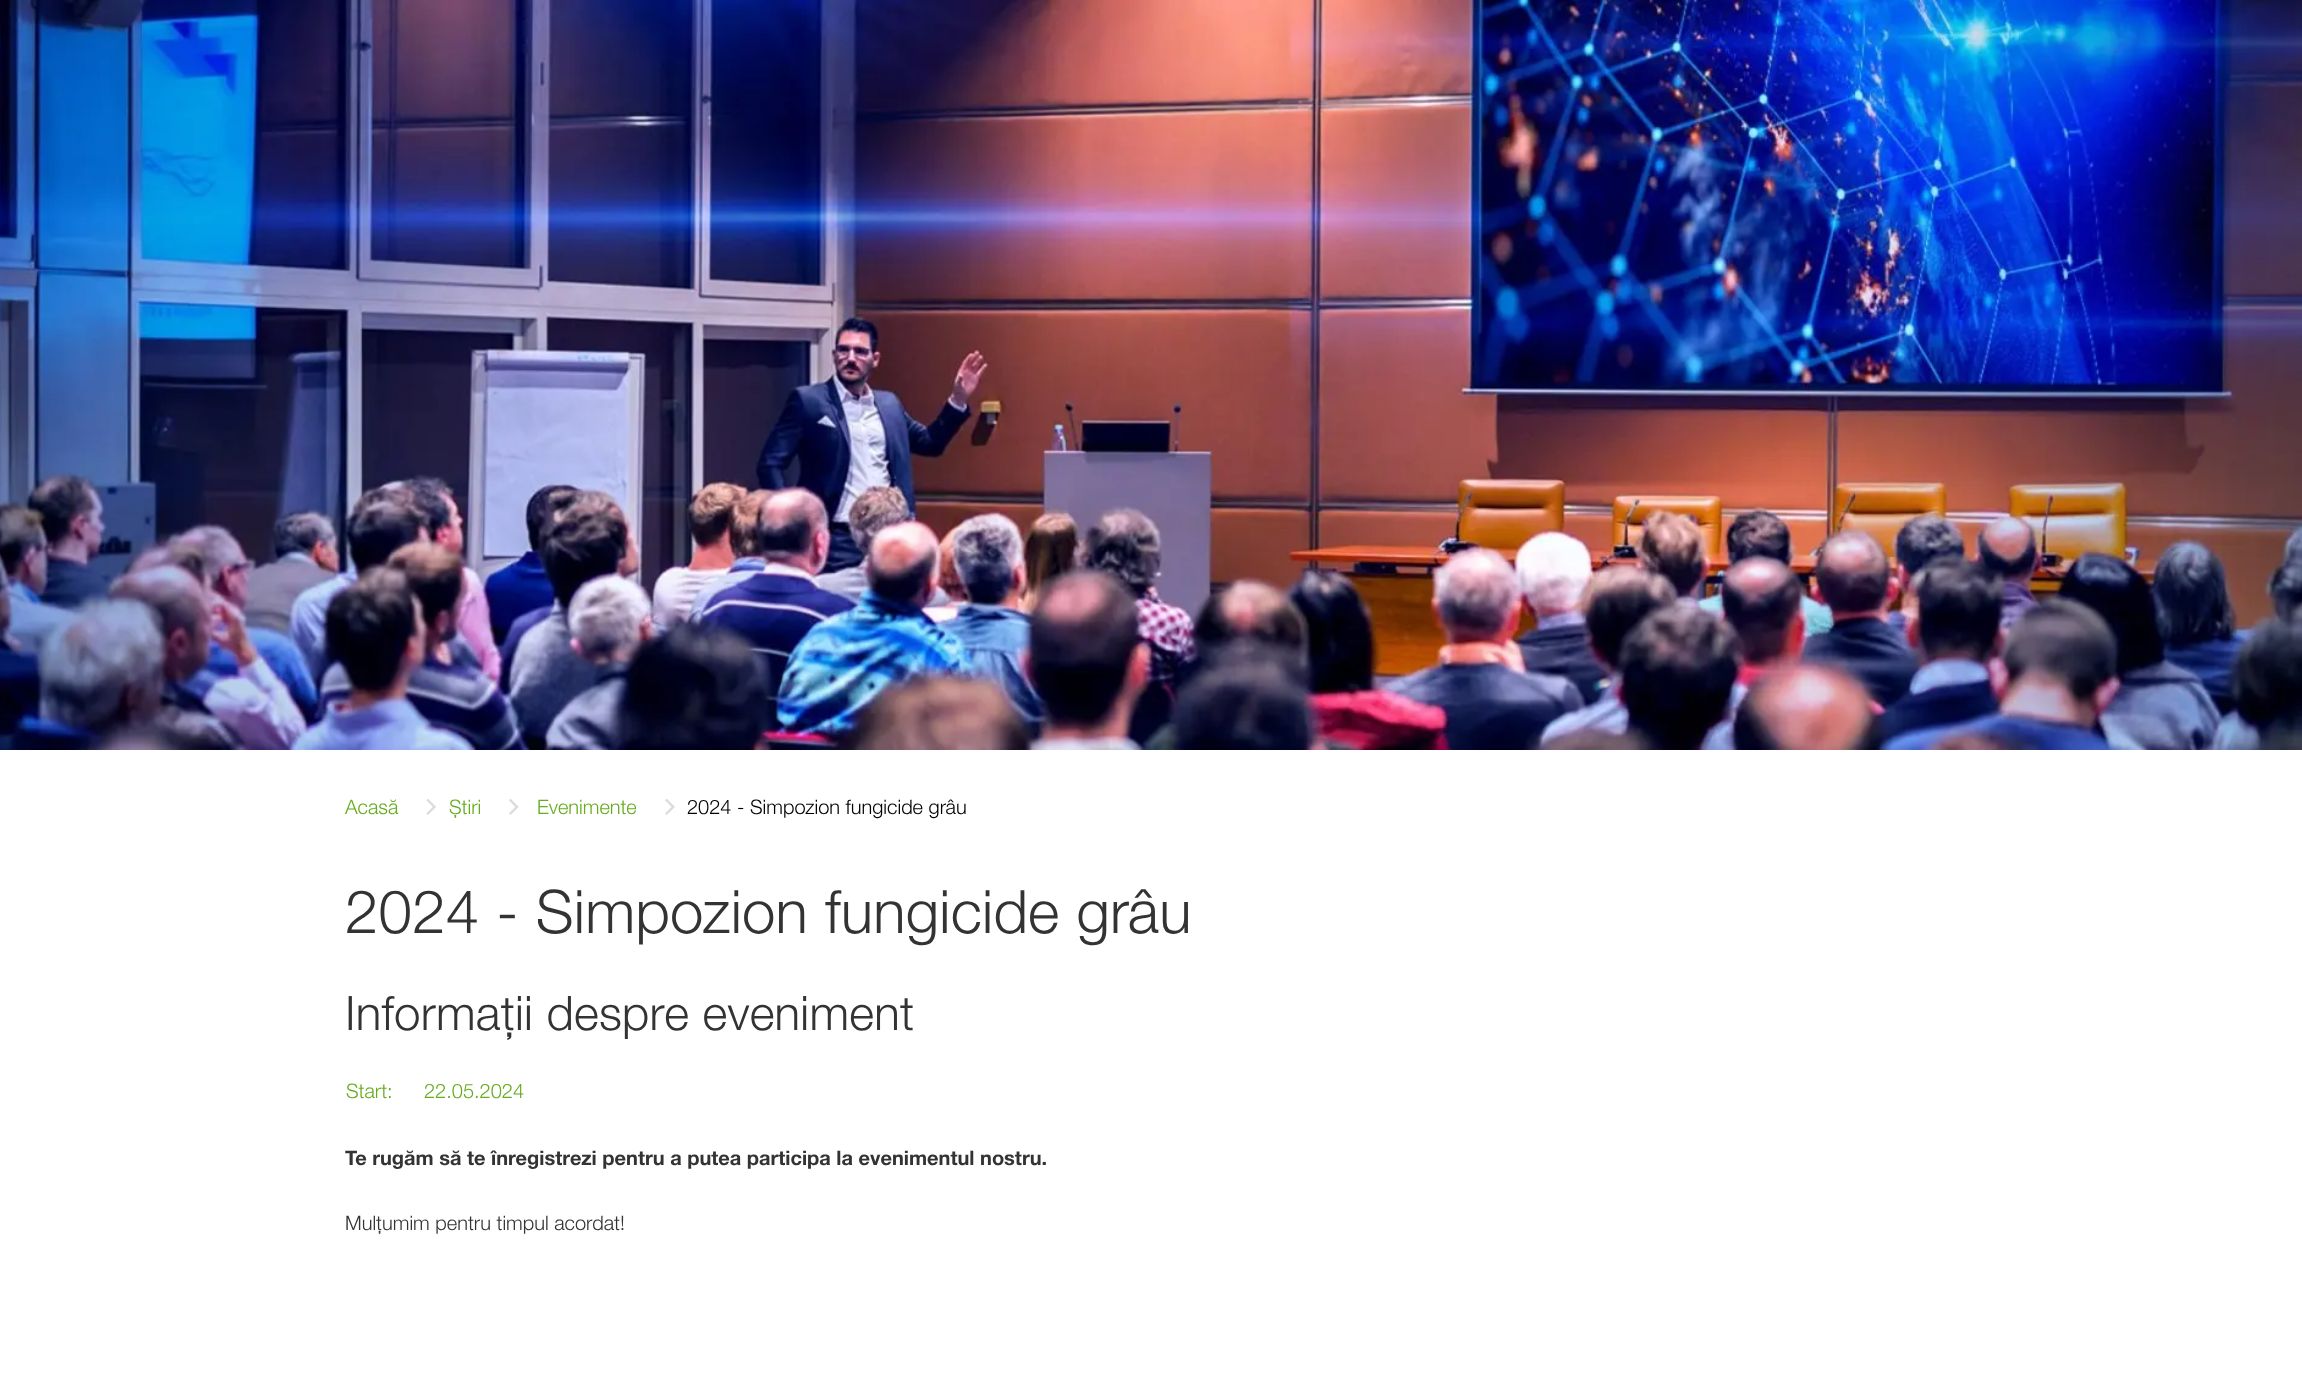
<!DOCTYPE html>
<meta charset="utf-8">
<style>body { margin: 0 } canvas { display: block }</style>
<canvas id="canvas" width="2302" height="1388"></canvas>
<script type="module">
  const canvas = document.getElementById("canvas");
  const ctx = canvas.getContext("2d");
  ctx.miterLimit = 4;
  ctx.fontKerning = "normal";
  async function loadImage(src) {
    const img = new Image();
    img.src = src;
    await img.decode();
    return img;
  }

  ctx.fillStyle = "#ffffff";
  ctx.fillRect(0, 0, 2302, 1388);
  ctx.drawImage(await loadImage("img1.png"), 0, 0, 2302, 750);
  ctx.font = "300 20px 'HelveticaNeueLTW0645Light'";
  ctx.fillStyle = "#65ac1e";
  ctx.fillText("Acasă", 345, 814);
  ctx.drawImage(await loadImage("img2.png"), 426, 799, 10, 16);
  ctx.fillText("Știri", 449, 814);
  ctx.drawImage(await loadImage("img3.png"), 509, 798, 10, 17);
  ctx.fillText("Evenimente", 537, 814);
  ctx.drawImage(await loadImage("img4.png"), 665, 798, 10, 17);
  ctx.fillStyle = "#000000";
  ctx.fillText("2024 - Simpozion fungicide grâu", 687, 814);
  ctx.letterSpacing = "0.25px";
  ctx.font = "300 60px 'HelveticaNeueLTW0645Light'";
  ctx.fillStyle = "#333333";
  ctx.fillText("2024 - Simpozion fungicide grâu", 345, 933);
  ctx.font = "300 47.5px 'HelveticaNeueLTW0645Light'";
  ctx.fillText("Informații despre eveniment", 345, 1030);
  ctx.letterSpacing = "0px";
  ctx.font = "300 20px 'HelveticaNeueLTW0645Light'";
  ctx.fillStyle = "#65ac1e";
  ctx.fillText("Start:", 346, 1098);
  ctx.fillText("22.05.2024", 424, 1098);
  ctx.font = "bold 20px 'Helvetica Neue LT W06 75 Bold'";
  ctx.fillStyle = "#333333";
  ctx.fillText("Te rugăm să te înregistrezi pentru a putea participa la evenimentul nostru.", 345, 1165);
  ctx.font = "300 20px 'HelveticaNeueLTW0645Light'";
  ctx.fillText("Mulțumim pentru timpul acordat!", 345, 1230);
</script>
